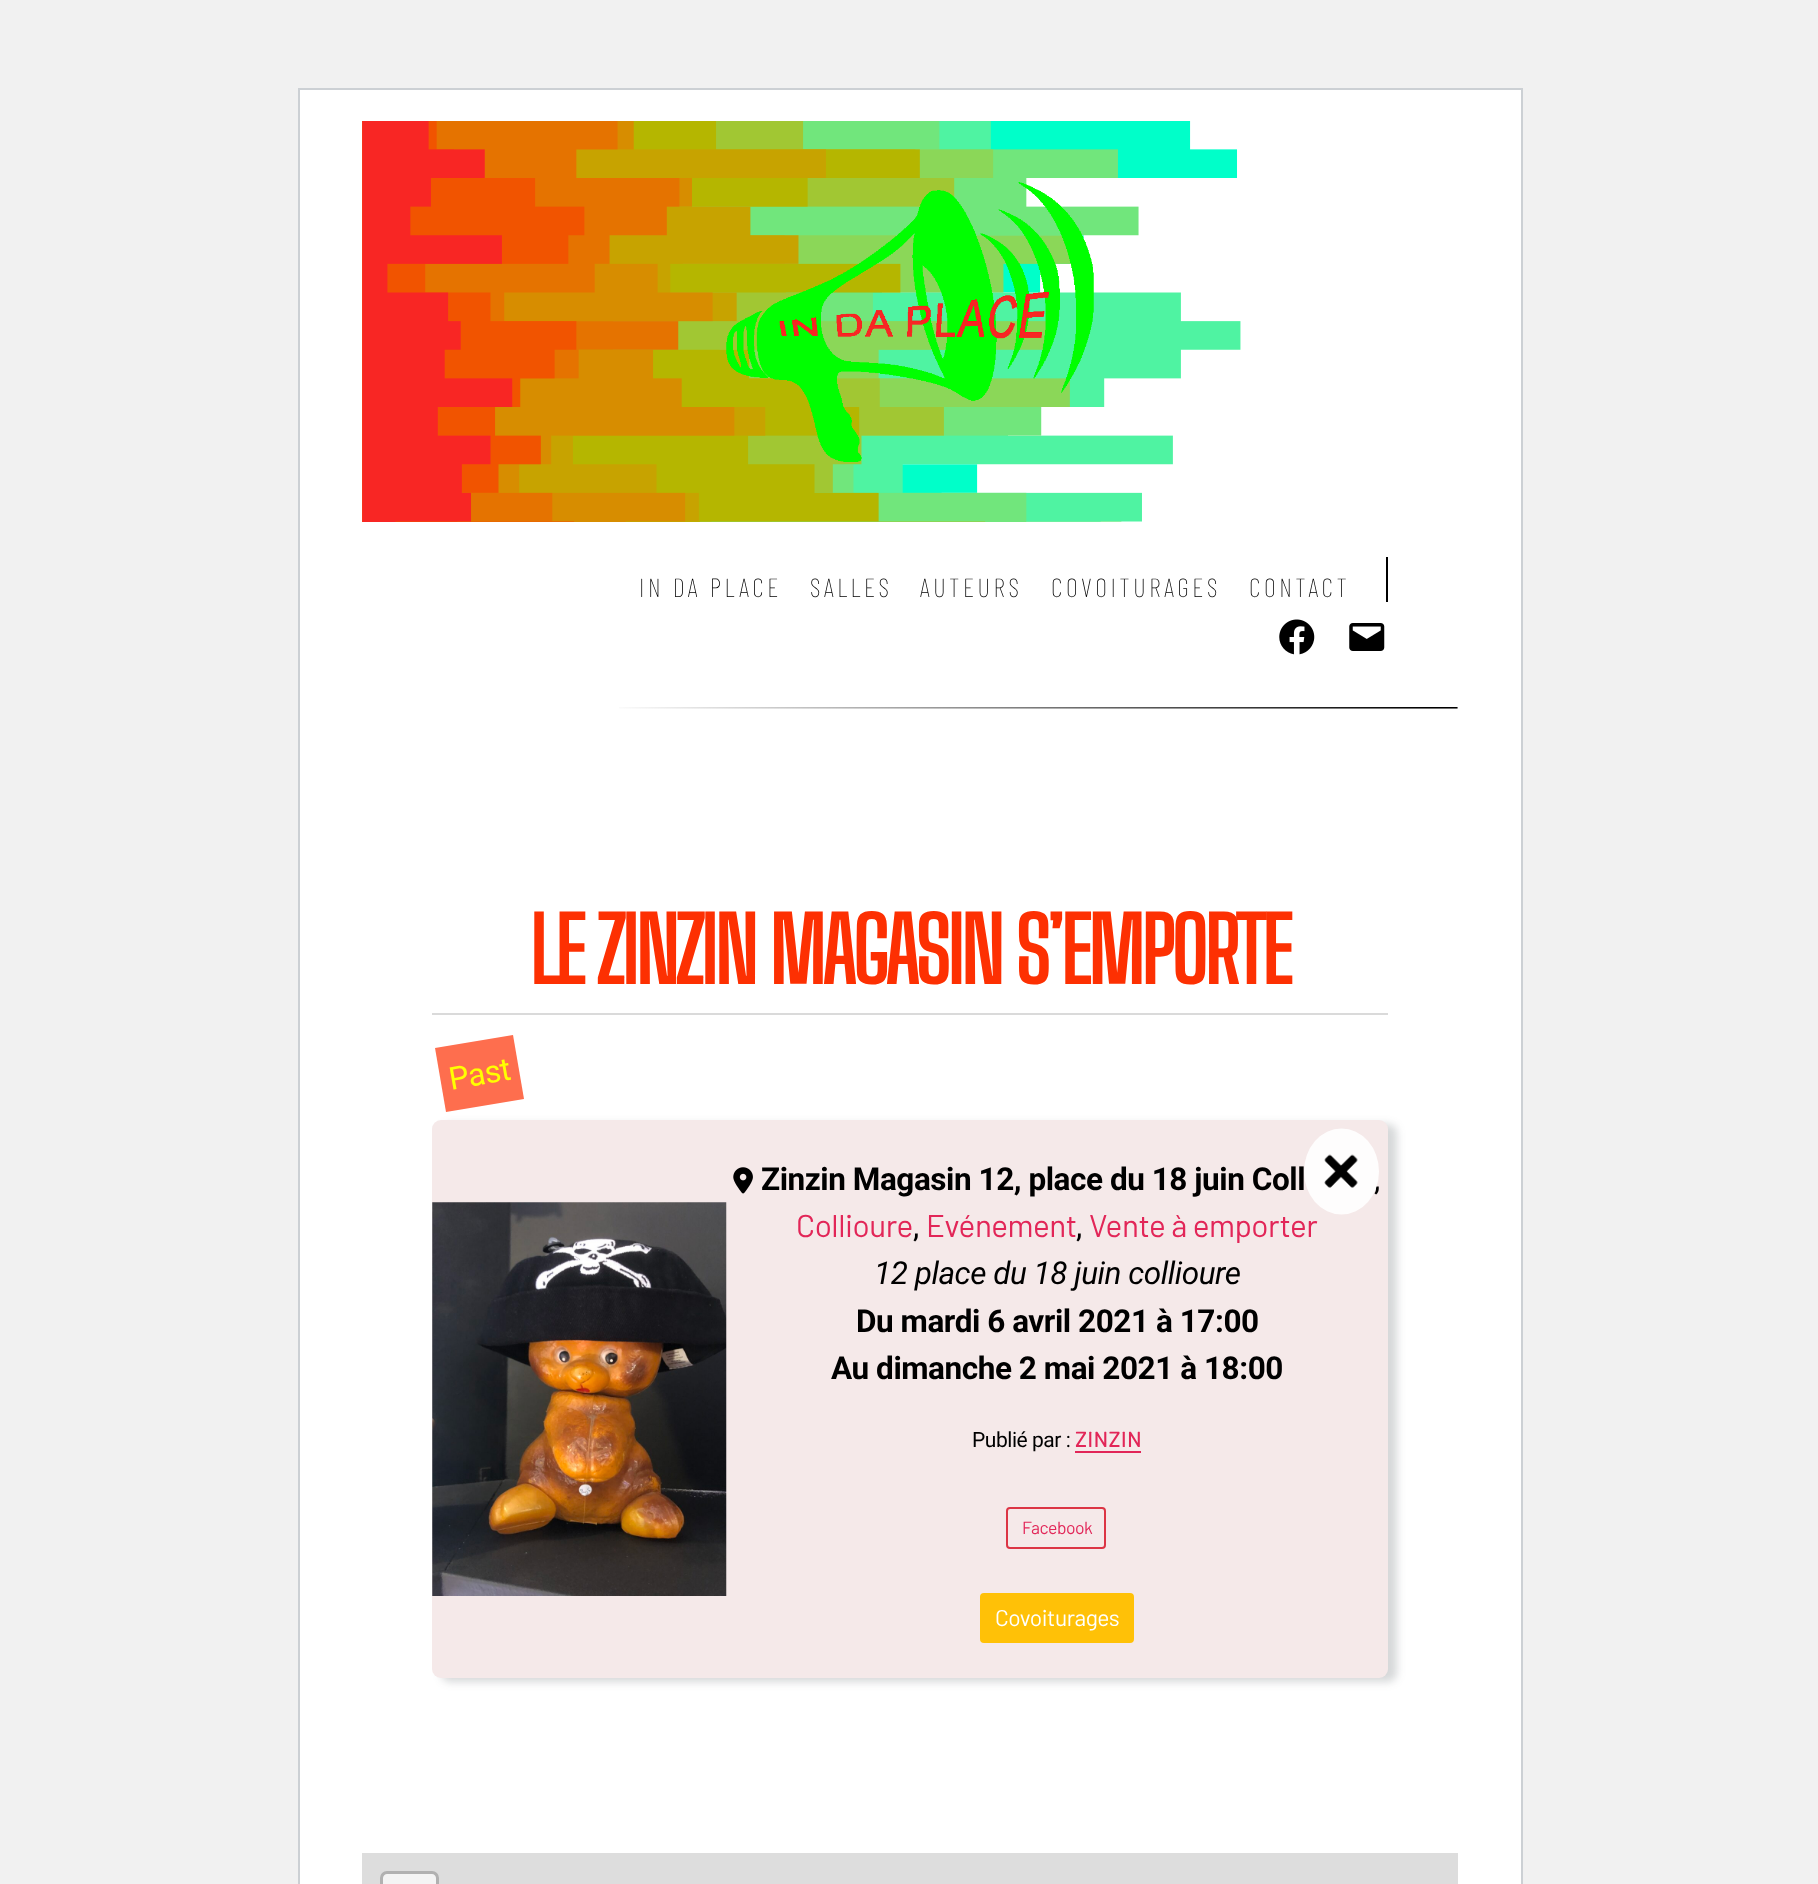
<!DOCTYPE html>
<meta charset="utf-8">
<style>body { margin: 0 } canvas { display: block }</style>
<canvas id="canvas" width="1818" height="1884"></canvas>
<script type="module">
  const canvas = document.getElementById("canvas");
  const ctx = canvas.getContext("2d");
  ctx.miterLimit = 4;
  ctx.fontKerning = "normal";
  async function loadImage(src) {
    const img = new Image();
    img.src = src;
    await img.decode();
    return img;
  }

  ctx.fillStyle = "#f1f1f1";
  ctx.fillRect(0, 0, 1818, 1884);
  ctx.fillStyle = "#ffffff";
  ctx.beginPath();
  ctx.rect(299, 89, 1223, 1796);
  ctx.fill();
  ctx.strokeStyle = "#ccd0d4";
  ctx.lineWidth = 2;
  ctx.stroke();
  ctx.drawImage(await loadImage("img1.png"), 362, 121, 879, 401);
  ctx.drawImage(await loadImage("img2.png"), 726, 182, 368, 280);
  ctx.drawImage(await loadImage("img3.png"), 619, 707, 839, 2);
  ctx.letterSpacing = "3.5px";
  ctx.font = "200 26.25px Barlow Condensed";
  ctx.fillStyle = "#000000";
  ctx.fillText("IN DA PLACE", 639, 597);
  ctx.fillText("SALLES", 810, 597);
  ctx.fillText("AUTEURS", 920, 597);
  ctx.fillText("COVOITURAGES", 1051, 597);
  ctx.fillText("CONTACT", 1249, 597);
  ctx.fillRect(1386, 557, 2, 45);
  ctx.drawImage(await loadImage("img4.png"), 1279, 619, 36, 36);
  ctx.drawImage(await loadImage("img5.png"), 1349, 623, 36, 28);
  ctx.fillStyle = "#dadada";
  ctx.fillRect(432, 1013, 956, 2);
  ctx.letterSpacing = "-3.65px";
  ctx.font = "bold 87.5px Big Shoulders Inline Text";
  ctx.fillStyle = "#fd3002";
  ctx.fillText("LE ZINZIN MAGASIN S’EMPORTE", 529, 984);
  ctx.fillStyle = "#fe6e4e";
  ctx.beginPath();
  ctx.moveTo(435, 1048);
  ctx.lineTo(513, 1035);
  ctx.lineTo(524, 1099);
  ctx.lineTo(446, 1112);
  ctx.closePath();
  ctx.fill();
  ctx.letterSpacing = "-0.45px";
  ctx.font = "31.5px Roboto";
  ctx.fillStyle = "#ffff00";
  ctx.save();
  ctx.translate(451, 1090);
  ctx.rotate(-10 * Math.PI / 180);
  ctx.fillText("Past", 0, 0);
  ctx.restore();
  ctx.fillStyle = "rgba(52, 58, 64, 0.2)";
  ctx.filter = "blur(4.5px)";
  ctx.beginPath();
  ctx.roundRect(441, 1124, 956, 558, 9);
  ctx.fill();
  ctx.filter = "none";
  ctx.fillStyle = "#f5e9e9";
  ctx.beginPath();
  ctx.roundRect(432, 1120, 956, 558, 9);
  ctx.fill();
  ctx.drawImage(await loadImage("img6.png"), 432, 1202, 295, 394);
  ctx.fillStyle = "#000000";
  ctx.fillText(",", 1374, 1190);
  ctx.font = "31.5px Barlow";
  ctx.fillStyle = "#e22658";
  ctx.fillText("Vente à emporter", 1089, 1237);
  ctx.fillStyle = "rgba(255, 255, 255, 0.9)";
  ctx.beginPath();
  ctx.ellipse(1341.5, 1171.5, 37.5, 43, 0, 0, Math.PI * 2);
  ctx.fill();
  ctx.drawImage(await loadImage("img7.png"), 1324, 1154, 34, 34);
  ctx.drawImage(await loadImage("img8.png"), 733, 1167, 20, 27);
  ctx.font = "bold 31.5px Roboto";
  ctx.fillStyle = "#000000";
  ctx.fillText("Zinzin Magasin 12, place du 18 juin Coll", 761, 1190);
  ctx.font = "31.5px Barlow";
  ctx.fillStyle = "#e22658";
  ctx.fillText("Collioure", 796, 1237);
  ctx.font = "31.5px Roboto";
  ctx.fillStyle = "#000000";
  ctx.fillText(",", 913, 1237);
  ctx.font = "31.5px Barlow";
  ctx.fillStyle = "#e22658";
  ctx.fillText("Evénement", 926, 1237);
  ctx.font = "31.5px Roboto";
  ctx.fillStyle = "#000000";
  ctx.fillText(",", 1076, 1237);
  ctx.font = "italic 31.5px Roboto";
  ctx.fillText("12 place du 18 juin collioure", 874, 1284);
  ctx.font = "bold 31.5px Roboto";
  ctx.fillText("Du mardi 6 avril 2021 à 17:00", 856, 1332);
  ctx.fillText("Au dimanche 2 mai 2021 à 18:00", 831, 1379);
  ctx.font = "21px Roboto";
  ctx.fillText("Publié par :", 972, 1447);
  ctx.letterSpacing = "0.75px";
  ctx.font = "bold 21px Barlow";
  ctx.fillStyle = "#e22658";
  ctx.fillText("ZINZIN", 1075, 1447);
  ctx.fillRect(1075, 1451, 66, 2);
  ctx.beginPath();
  ctx.roundRect(1007, 1508, 98, 40, 3);
  ctx.strokeStyle = "#dc3545";
  ctx.stroke();
  ctx.letterSpacing = "-0.45px";
  ctx.font = "17.5px Barlow";
  ctx.fillText("Facebook", 1022, 1534);
  ctx.fillStyle = "#ffc107";
  ctx.beginPath();
  ctx.roundRect(981, 1594, 152, 48, 3);
  ctx.fill();
  ctx.strokeStyle = "#ffc107";
  ctx.stroke();
  ctx.font = "22.75px Barlow";
  ctx.fillStyle = "#ffffff";
  ctx.fillText("Covoiturages", 995, 1626);
  ctx.fillStyle = "#dddddd";
  ctx.fillRect(362, 1853, 1096, 31);
  ctx.beginPath();
  ctx.roundRect(382, 1873, 55, 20, 5);
  ctx.strokeStyle = "#b1b1b1";
  ctx.lineWidth = 4;
  ctx.stroke();
  ctx.fillStyle = "#f4f4f4";
  ctx.beginPath();
  ctx.moveTo(387, 1874);
  ctx.lineTo(432, 1874);
  ctx.bezierCurveTo(434, 1874, 436, 1876, 436, 1878);
  ctx.lineTo(436, 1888);
  ctx.lineTo(383, 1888);
  ctx.lineTo(383, 1878);
  ctx.bezierCurveTo(383, 1876, 385, 1874, 387, 1874);
  ctx.closePath();
  ctx.fill();
</script>
